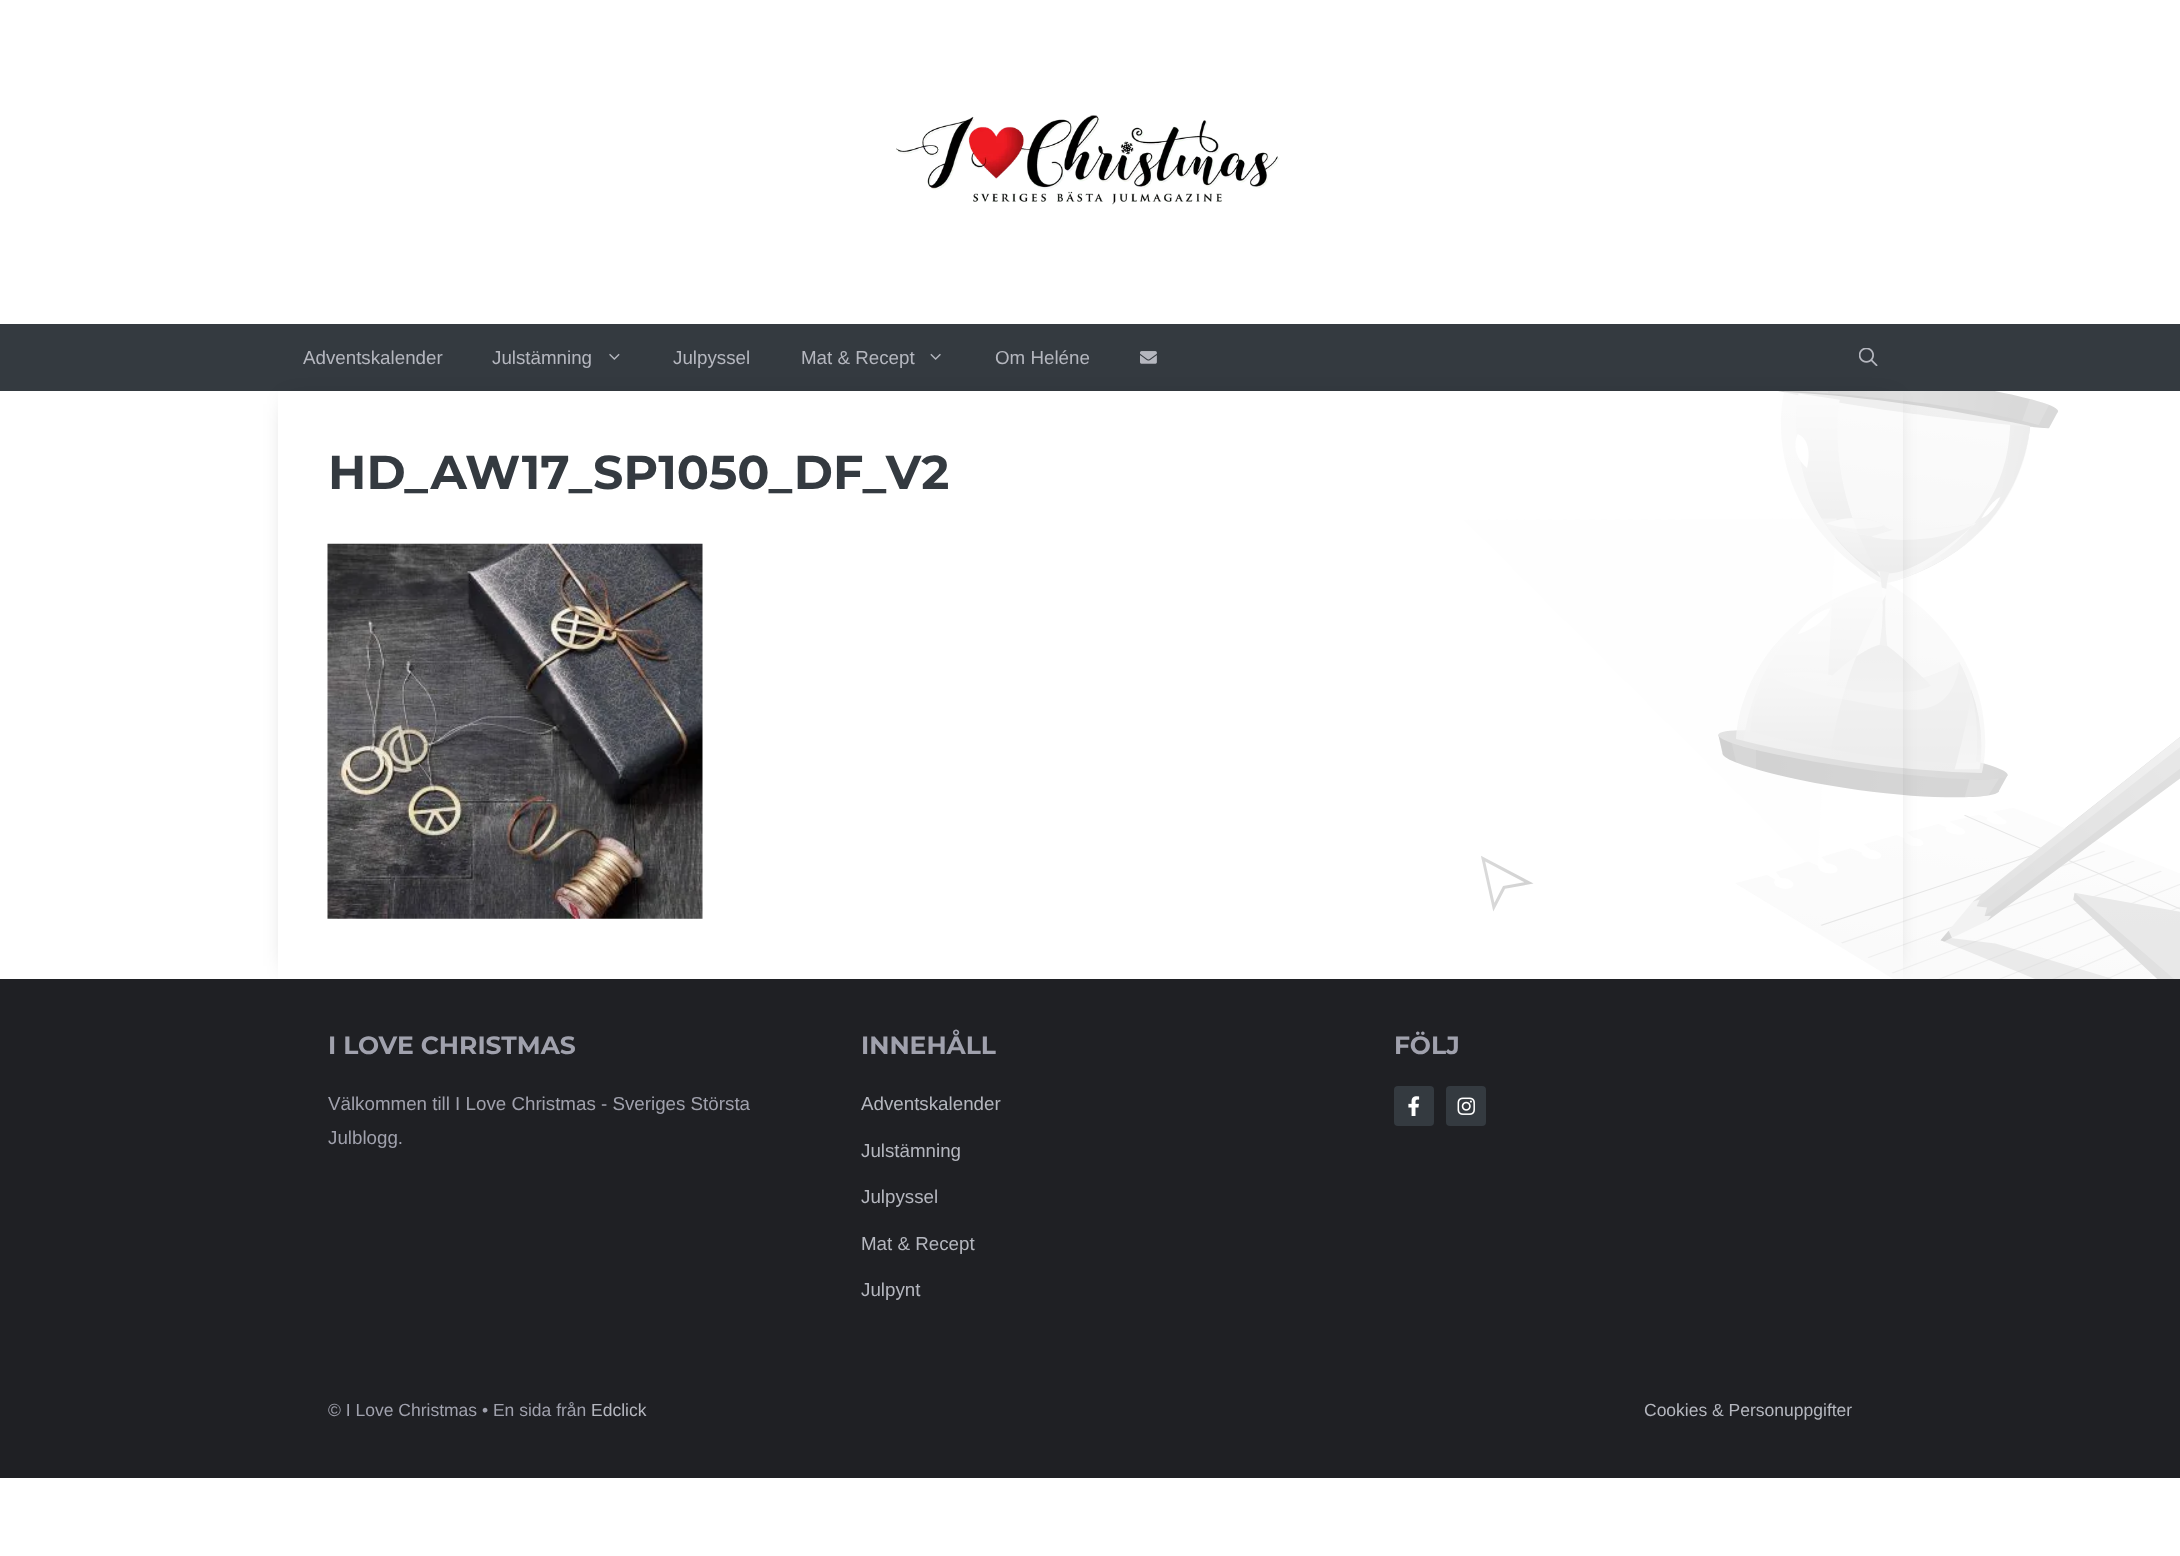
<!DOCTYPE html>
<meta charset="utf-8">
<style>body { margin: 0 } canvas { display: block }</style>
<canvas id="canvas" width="2180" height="1556"></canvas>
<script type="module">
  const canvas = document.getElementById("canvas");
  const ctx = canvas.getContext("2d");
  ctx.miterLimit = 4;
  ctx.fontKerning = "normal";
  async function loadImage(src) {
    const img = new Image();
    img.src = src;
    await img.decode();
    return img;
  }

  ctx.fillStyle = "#ffffff";
  ctx.fillRect(0, 0, 2180, 1556);
  ctx.drawImage(await loadImage("img1.png"), 1464, 391, 716, 588);
  ctx.drawImage(await loadImage("img2.png"), 896, 115, 384, 90);
  ctx.fillStyle = "#343a40";
  ctx.fillRect(0, 324, 2180, 67);
  ctx.font = "18.75px Liberation Sans";
  ctx.fillStyle = "#b5b7bf";
  ctx.fillText("Adventskalender", 303, 364);
  ctx.save();
  ctx.beginPath();
  ctx.moveTo(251, 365);
  ctx.lineTo(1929, 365);
  ctx.lineTo(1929, 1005);
  ctx.lineTo(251, 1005);
  ctx.closePath();
  ctx.moveTo(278, 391);
  ctx.lineTo(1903, 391);
  ctx.lineTo(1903, 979);
  ctx.lineTo(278, 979);
  ctx.closePath();
  ctx.clip("evenodd");
  ctx.fillStyle = "rgba(0, 0, 0, 0.3)";
  ctx.filter = "blur(12.5px)";
  ctx.beginPath();
  ctx.rect(290, 404, 1600, 562);
  ctx.fill();
  ctx.filter = "none";
  ctx.restore();
  ctx.fillText("Julstämning", 492, 364);
  ctx.drawImage(await loadImage("img3.png"), 609, 353, 11, 7);
  ctx.fillText("Julpyssel", 673, 364);
  ctx.fillText("Mat & Recept", 801, 364);
  ctx.drawImage(await loadImage("img4.png"), 930, 353, 11, 7);
  ctx.fillText("Om Heléne", 995, 364);
  ctx.drawImage(await loadImage("img5.png"), 1140, 351, 17, 13);
  ctx.drawImage(await loadImage("img6.png"), 1859, 348, 19, 18);
  ctx.fillStyle = "#ffffff";
  ctx.fillRect(302, 391, 1113, 588);
  ctx.font = "bold 47.5px Montserrat";
  ctx.fillStyle = "#343a40";
  ctx.fillText("HD_AW17_SP1050_DF_V2", 328, 489);
  ctx.drawImage(await loadImage("img7.png"), 327, 543, 376, 376);
  ctx.fillStyle = "#1f2024";
  ctx.fillRect(0, 979, 2180, 499);
  ctx.font = "bold 25px Montserrat";
  ctx.fillStyle = "#a0a1ad";
  ctx.fillText("I LOVE CHRISTMAS", 328, 1054);
  ctx.font = "18.75px Liberation Sans";
  ctx.fillText("Välkommen till I Love Christmas - Sveriges Största", 328, 1110);
  ctx.fillText("Julblogg.", 328, 1144);
  ctx.font = "bold 25px Montserrat";
  ctx.fillText("INNEHÅLL", 861, 1054);
  ctx.font = "18.75px Liberation Sans";
  ctx.fillStyle = "#b5b7bf";
  ctx.fillText("Adventskalender", 861, 1110);
  ctx.fillText("Julstämning", 861, 1157);
  ctx.fillText("Julpyssel", 861, 1203);
  ctx.fillText("Mat & Recept", 861, 1250);
  ctx.fillText("Julpynt", 861, 1296);
  ctx.font = "bold 25px Montserrat";
  ctx.fillStyle = "#a0a1ad";
  ctx.fillText("FÖLJ", 1394, 1054);
  ctx.fillStyle = "#343a40";
  ctx.beginPath();
  ctx.roundRect(1394, 1086, 40, 40, 4);
  ctx.fill();
  ctx.drawImage(await loadImage("img8.png"), 1408, 1096, 12, 20);
  ctx.beginPath();
  ctx.roundRect(1446, 1086, 40, 40, 4);
  ctx.fill();
  ctx.drawImage(await loadImage("img9.png"), 1457, 1097, 18, 18);
  ctx.font = "17.5px Liberation Sans";
  ctx.fillStyle = "#a0a1ad";
  ctx.fillText("© I Love Christmas • En sida från", 328, 1416);
  ctx.fillStyle = "#b5b7bf";
  ctx.fillText("Edclick", 591, 1416);
  ctx.fillText("Cookies & Personuppgifter", 1644, 1416);
</script>
